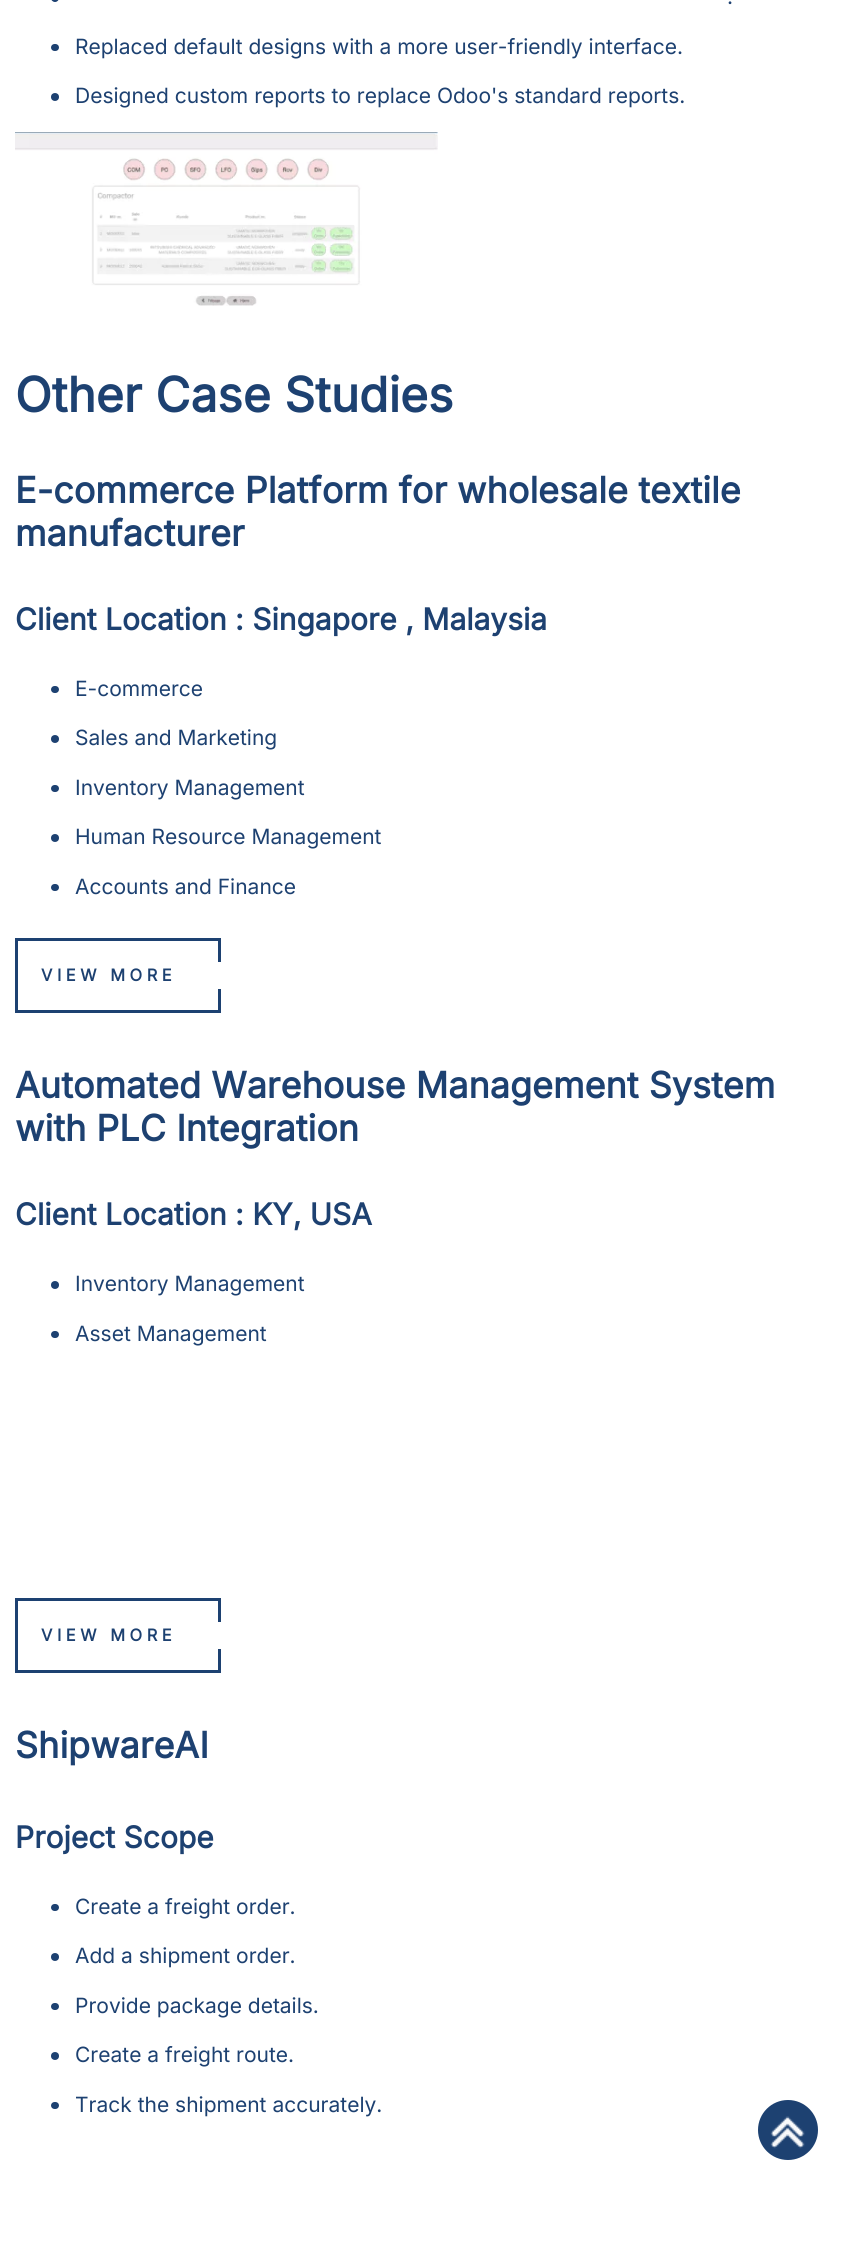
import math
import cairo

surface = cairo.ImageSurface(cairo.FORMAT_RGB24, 862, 2252)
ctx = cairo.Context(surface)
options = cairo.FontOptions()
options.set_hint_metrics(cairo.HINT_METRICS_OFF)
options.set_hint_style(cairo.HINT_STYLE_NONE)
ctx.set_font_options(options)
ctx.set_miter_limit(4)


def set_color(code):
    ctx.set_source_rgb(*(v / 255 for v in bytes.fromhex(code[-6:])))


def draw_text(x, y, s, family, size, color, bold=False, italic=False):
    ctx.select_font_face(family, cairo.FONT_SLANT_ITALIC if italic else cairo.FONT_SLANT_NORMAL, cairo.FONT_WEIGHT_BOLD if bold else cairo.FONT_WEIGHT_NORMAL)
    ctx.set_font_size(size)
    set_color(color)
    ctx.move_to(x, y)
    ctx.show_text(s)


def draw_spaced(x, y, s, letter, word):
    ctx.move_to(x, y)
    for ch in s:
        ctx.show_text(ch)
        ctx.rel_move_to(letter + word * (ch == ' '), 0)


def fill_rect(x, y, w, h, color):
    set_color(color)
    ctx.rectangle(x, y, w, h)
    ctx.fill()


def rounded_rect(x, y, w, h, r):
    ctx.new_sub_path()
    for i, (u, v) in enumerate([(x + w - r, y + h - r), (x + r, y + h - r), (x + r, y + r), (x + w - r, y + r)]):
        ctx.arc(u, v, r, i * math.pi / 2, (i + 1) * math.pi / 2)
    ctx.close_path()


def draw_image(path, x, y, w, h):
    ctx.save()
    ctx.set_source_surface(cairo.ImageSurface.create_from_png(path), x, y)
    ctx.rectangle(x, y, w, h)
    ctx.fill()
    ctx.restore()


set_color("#ffffff")
ctx.paint()
set_color("#1d4171")
rounded_rect(51, -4, 8, 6, 4)
ctx.fill()
draw_text(727, 4, ".", "Inter", 21, "#1d4171")
rounded_rect(51, 44, 8, 7, 3.5)
ctx.fill()
draw_text(75, 54, "Replaced default designs with a more user-friendly interface.", "Inter", 21, "#1d4171")
ctx.new_path()
ctx.arc(55, 97, 4, 0, 2 * math.pi)
ctx.fill()
draw_text(75, 103, "Designed custom reports to replace Odoo's standard reports.", "Inter", 21, "#1d4171")
draw_image("assets/img1.png", 15, 132, 423, 174)
draw_text(15, 412, "Other Case Studies", "Inter", 48, "#1d4171", bold=True)
draw_text(15, 503, "E-commerce Platform for wholesale textile", "Inter", 36, "#1d4171", bold=True)
draw_text(15, 546, "manufacturer", "Inter", 36, "#1d4171", bold=True)
draw_text(15, 630, "Client Location : Singapore , Malaysia", "Inter", 30, "#1d4171", bold=True)
rounded_rect(51, 686, 8, 7, 3.5)
ctx.fill()
draw_text(75, 696, "E-commerce", "Inter", 21, "#1d4171")
ctx.new_path()
ctx.arc(55, 739, 4, 0, 2 * math.pi)
ctx.fill()
draw_text(75, 745, "Sales and Marketing", "Inter", 21, "#1d4171")
rounded_rect(51, 785, 8, 7, 3.5)
ctx.fill()
draw_text(75, 795, "Inventory Management", "Inter", 21, "#1d4171")
ctx.new_path()
ctx.arc(55, 838, 4, 0, 2 * math.pi)
ctx.fill()
draw_text(75, 844, "Human Resource Management", "Inter", 21, "#1d4171")
rounded_rect(51, 884, 8, 7, 3.5)
ctx.fill()
draw_text(75, 894, "Accounts and Finance", "Inter", 21, "#1d4171")
fill_rect(15, 938, 206, 3, "#1d4171")
fill_rect(15, 1010, 206, 3, "#1d4171")
fill_rect(15, 938, 3, 75, "#1d4171")
fill_rect(218, 941, 3, 21, "#1d4171")
ctx.select_font_face("Inter", cairo.FONT_SLANT_NORMAL, cairo.FONT_WEIGHT_BOLD)
ctx.set_font_size(16.5)
draw_spaced(41, 981, "VIEW MORE", 4.5, 0)
fill_rect(218, 989, 3, 21, "#1d4171")
draw_text(15, 1098, "Automated Warehouse Management System", "Inter", 36, "#1d4171", bold=True)
draw_text(15, 1141, "with PLC Integration", "Inter", 36, "#1d4171", bold=True)
draw_text(15, 1225, "Client Location : KY, USA", "Inter", 30, "#1d4171", bold=True)
ctx.new_path()
ctx.arc(55, 1285, 4, 0, 2 * math.pi)
ctx.fill()
draw_text(75, 1291, "Inventory Management", "Inter", 21, "#1d4171")
rounded_rect(51, 1331, 8, 7, 3.5)
ctx.fill()
draw_text(75, 1341, "Asset Management", "Inter", 21, "#1d4171")
fill_rect(15, 1598, 206, 3, "#1d4171")
fill_rect(15, 1670, 206, 3, "#1d4171")
fill_rect(15, 1598, 3, 75, "#1d4171")
fill_rect(218, 1601, 3, 21, "#1d4171")
ctx.select_font_face("Inter", cairo.FONT_SLANT_NORMAL, cairo.FONT_WEIGHT_BOLD)
ctx.set_font_size(16.5)
draw_spaced(41, 1641, "VIEW MORE", 4.5, 0)
fill_rect(218, 1649, 3, 21, "#1d4171")
draw_text(15, 1758, "ShipwareAI", "Inter", 36, "#1d4171", bold=True)
draw_text(15, 1848, "Project Scope", "Inter", 30, "#1d4171", bold=True)
rounded_rect(51, 1904, 8, 7, 3.5)
ctx.fill()
draw_text(75, 1914, "Create a freight order.", "Inter", 21, "#1d4171")
ctx.new_path()
ctx.arc(55, 1957, 4, 0, 2 * math.pi)
ctx.fill()
draw_text(75, 1963, "Add a shipment order.", "Inter", 21, "#1d4171")
rounded_rect(51, 2003, 8, 7, 3.5)
ctx.fill()
draw_text(75, 2013, "Provide package details.", "Inter", 21, "#1d4171")
ctx.new_path()
ctx.arc(55, 2056, 4, 0, 2 * math.pi)
ctx.fill()
draw_text(75, 2062, "Create a freight route.", "Inter", 21, "#1d4171")
rounded_rect(51, 2102, 8, 7, 3.5)
ctx.fill()
draw_text(75, 2112, "Track the shipment accurately.", "Inter", 21, "#1d4171")
ctx.new_path()
ctx.arc(788, 2130, 30, 0, 2 * math.pi)
ctx.fill()
draw_image("assets/img2.png", 770, 2116, 35, 33)
surface.write_to_png("output.png")
